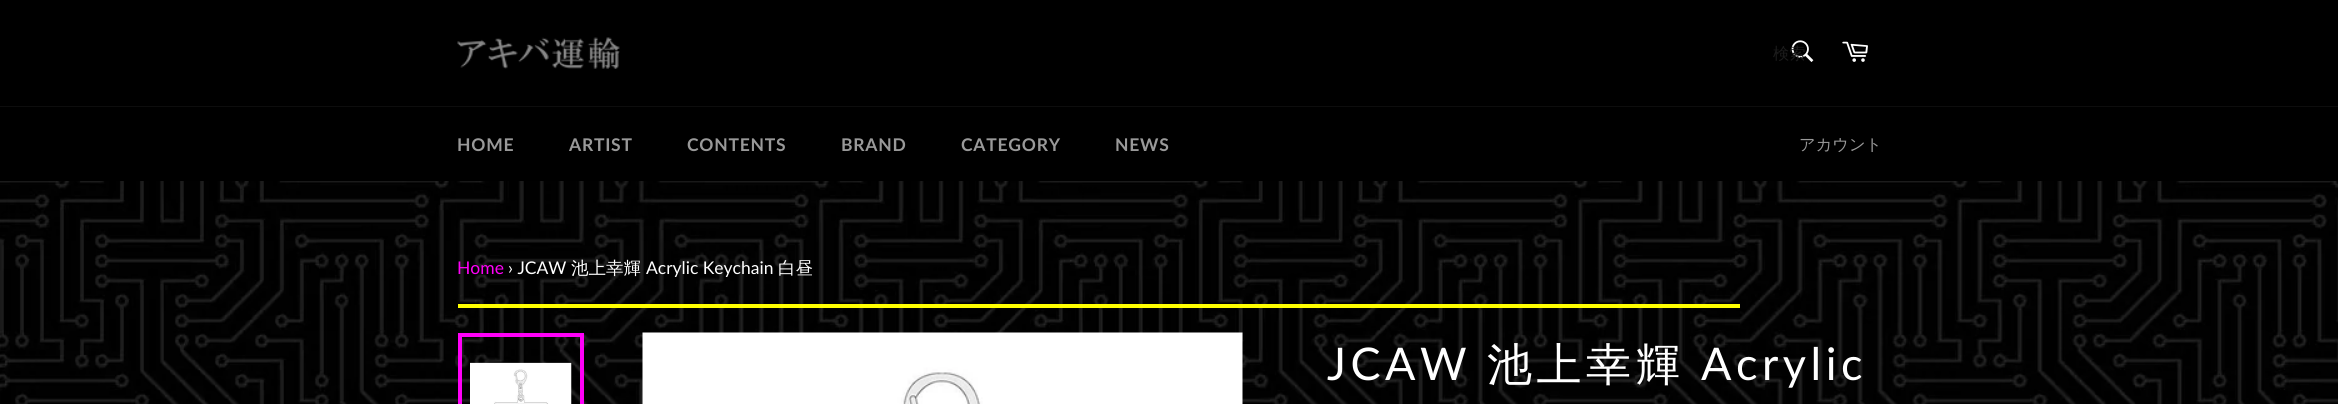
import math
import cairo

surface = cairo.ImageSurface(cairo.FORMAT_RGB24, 2338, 404)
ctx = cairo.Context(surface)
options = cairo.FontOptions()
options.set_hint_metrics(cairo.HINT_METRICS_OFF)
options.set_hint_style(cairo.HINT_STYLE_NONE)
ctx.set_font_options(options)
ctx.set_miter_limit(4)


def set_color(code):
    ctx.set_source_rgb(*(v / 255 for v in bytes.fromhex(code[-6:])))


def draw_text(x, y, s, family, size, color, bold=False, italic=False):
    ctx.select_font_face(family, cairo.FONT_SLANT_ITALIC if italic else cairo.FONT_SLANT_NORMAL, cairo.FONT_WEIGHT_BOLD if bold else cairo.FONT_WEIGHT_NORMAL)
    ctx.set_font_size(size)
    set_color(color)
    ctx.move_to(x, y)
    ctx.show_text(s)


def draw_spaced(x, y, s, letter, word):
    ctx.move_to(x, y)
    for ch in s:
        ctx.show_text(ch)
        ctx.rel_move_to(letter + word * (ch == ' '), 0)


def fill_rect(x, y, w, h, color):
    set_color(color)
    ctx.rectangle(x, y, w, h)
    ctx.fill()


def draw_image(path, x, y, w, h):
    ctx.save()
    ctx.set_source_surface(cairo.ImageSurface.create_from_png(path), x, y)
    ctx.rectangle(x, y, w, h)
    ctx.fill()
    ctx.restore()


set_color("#ffffff")
ctx.paint()
draw_image("assets/img1.png", 0, 181, 2338, 223)
fill_rect(0, 0, 2338, 106, "#000000")
draw_image("assets/img2.png", 457, 37, 163, 32)
draw_image("assets/img3.png", 1791, 40, 23, 22)
draw_text(1773, 59, "検索", "WenQuanYi Zen Hei Medium", 16.25, "#1b1b1b")
draw_image("assets/img4.png", 1842, 41, 26, 21)
fill_rect(0, 107, 2338, 74, "#000000")
fill_rect(0, 106, 2338, 1, "#0d0d0d")
ctx.select_font_face("Lato", cairo.FONT_SLANT_NORMAL, cairo.FONT_WEIGHT_BOLD)
ctx.set_font_size(17.5)
set_color("#999999")
draw_spaced(457, 151, "HOME", 0.75, 0)
draw_spaced(569, 151, "ARTIST", 0.75, 0)
draw_spaced(687, 151, "CONTENTS", 0.75, 0)
draw_spaced(841, 151, "BRAND", 0.75, 0)
draw_spaced(961, 151, "CATEGORY", 0.75, 0)
draw_spaced(1115, 151, "NEWS", 0.75, 0)
draw_text(1799, 150, "アカウント", "WenQuanYi Zen Hei Medium", 16.25, "#999999")
draw_text(457, 274, "Home", "Lato", 17.5, "#ff00f8")
draw_text(508, 274, "› JCAW", "Lato", 17.5, "#ffffff")
draw_text(571, 274, "池上幸輝", "WenQuanYi Zen Hei Medium", 17.5, "#ffffff")
draw_text(646, 274, "Acrylic Keychain", "Lato", 17.5, "#ffffff")
draw_text(778, 274, "白昼", "WenQuanYi Zen Hei Medium", 17.5, "#ffffff")
fill_rect(458, 304, 1282, 4, "#ffff00")
draw_image("assets/img5.png", 470, 362, 102, 42)
ctx.rectangle(460, 335, 122, 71)
set_color("#ff00f8")
ctx.set_line_width(4)
ctx.stroke()
draw_image("assets/img6.png", 642, 332, 601, 72)
ctx.select_font_face("Lato")
ctx.set_font_size(45)
set_color("#ffffff")
draw_spaced(1327, 380, "JCAW", 4.5, 0)
ctx.select_font_face("WenQuanYi Zen Hei Medium")
draw_spaced(1487, 380, "池上幸輝", 4.5, 0)
ctx.select_font_face("Lato")
draw_spaced(1701, 380, "Acrylic", 4.5, 0)
surface.write_to_png("output.png")
